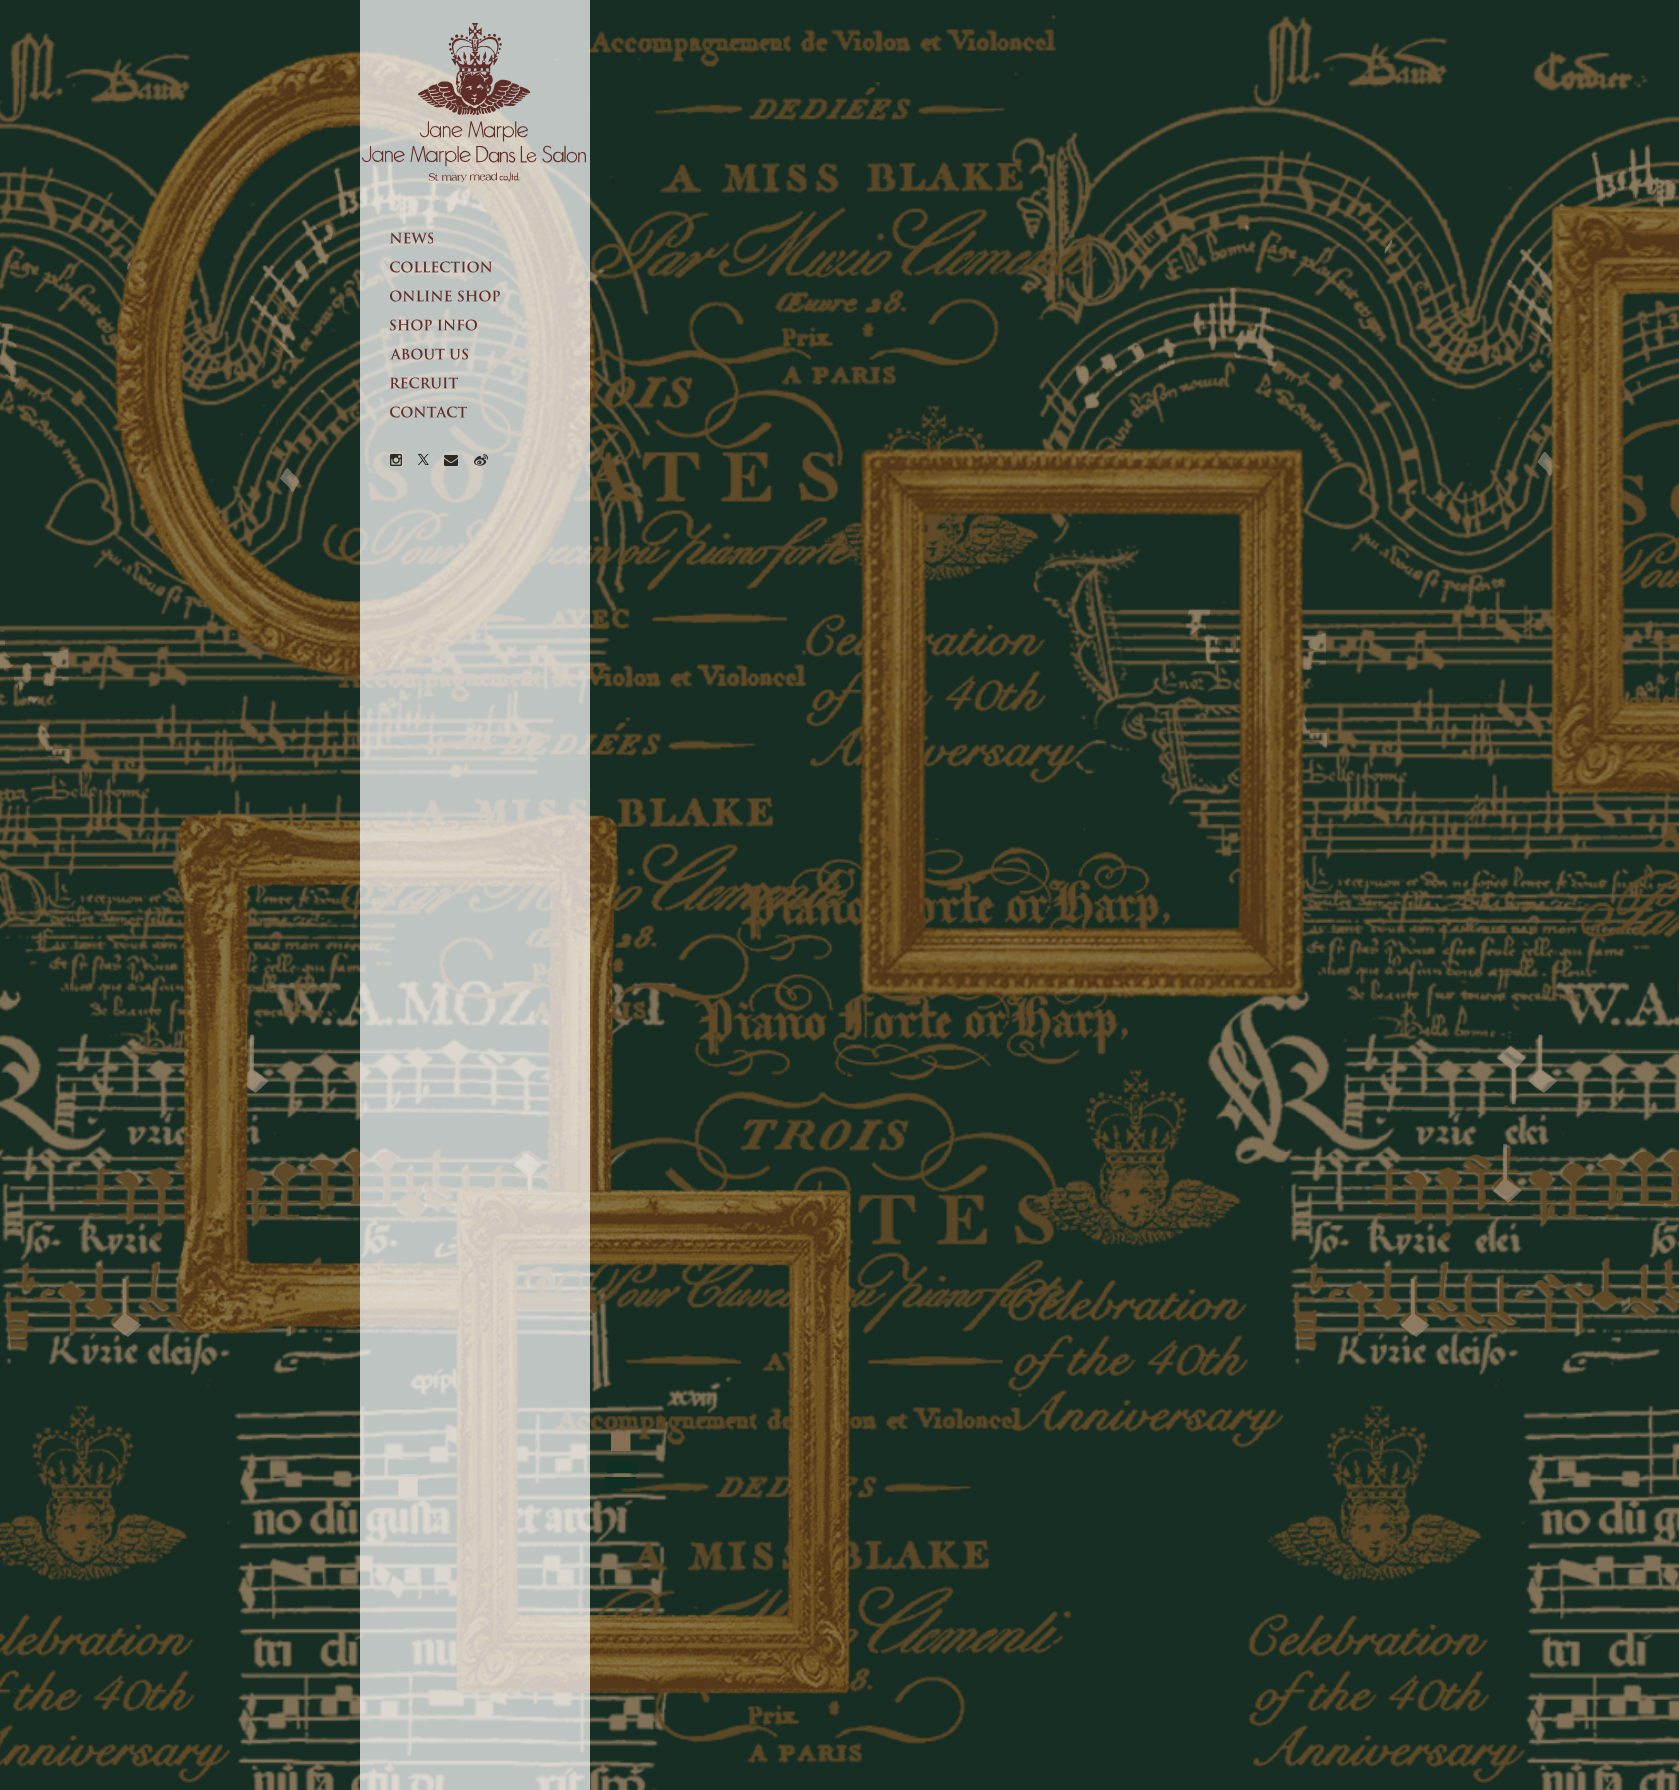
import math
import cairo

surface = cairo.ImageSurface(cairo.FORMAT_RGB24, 1679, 1790)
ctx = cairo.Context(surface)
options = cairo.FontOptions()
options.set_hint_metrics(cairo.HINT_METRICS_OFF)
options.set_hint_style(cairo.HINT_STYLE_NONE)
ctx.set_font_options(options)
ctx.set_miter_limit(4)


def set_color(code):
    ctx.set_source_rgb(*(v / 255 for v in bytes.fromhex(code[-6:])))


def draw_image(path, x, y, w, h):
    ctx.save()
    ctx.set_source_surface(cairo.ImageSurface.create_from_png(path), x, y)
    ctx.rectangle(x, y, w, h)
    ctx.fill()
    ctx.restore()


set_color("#162e24")
ctx.paint()
draw_image("assets/img13.png", 0, 15, 1679, 1775)
ctx.set_source_rgba(1, 1, 1, 0.6)
ctx.rectangle(360, 0, 230, 1790)
ctx.fill()
ctx.set_source_rgba(1, 1, 1, 0.3)
ctx.rectangle(360, 0, 230, 1790)
ctx.fill()
draw_image("assets/img1.png", 362, 23, 224, 159)
draw_image("assets/img2.png", 390, 232, 43, 12)
draw_image("assets/img3.png", 390, 261, 102, 12)
draw_image("assets/img4.png", 390, 290, 110, 12)
draw_image("assets/img5.png", 390, 319, 87, 12)
draw_image("assets/img6.png", 390, 348, 78, 12)
draw_image("assets/img7.png", 390, 377, 68, 12)
draw_image("assets/img8.png", 390, 406, 77, 12)
draw_image("assets/img9.png", 390, 454, 12, 12)
draw_image("assets/img10.png", 418, 454, 11, 11)
draw_image("assets/img11.png", 444, 455, 14, 11)
draw_image("assets/img12.png", 474, 454, 14, 12)
surface.write_to_png("output.png")
